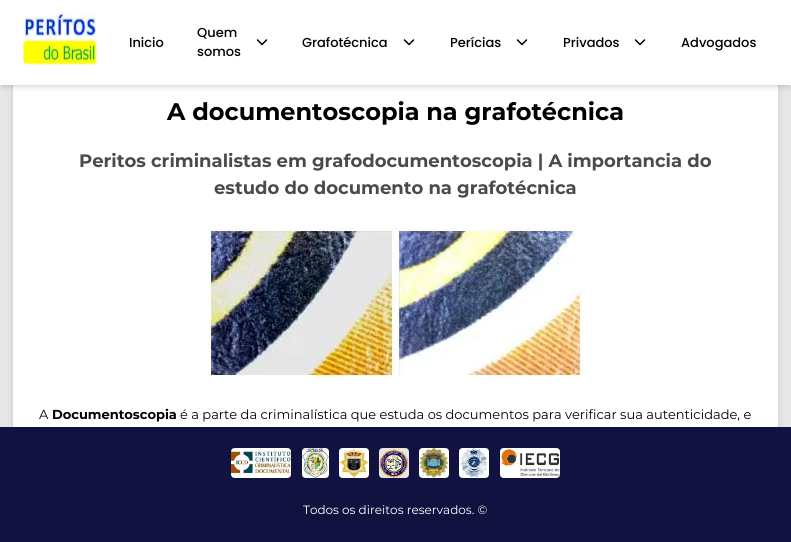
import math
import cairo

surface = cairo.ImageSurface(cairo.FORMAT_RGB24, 791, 542)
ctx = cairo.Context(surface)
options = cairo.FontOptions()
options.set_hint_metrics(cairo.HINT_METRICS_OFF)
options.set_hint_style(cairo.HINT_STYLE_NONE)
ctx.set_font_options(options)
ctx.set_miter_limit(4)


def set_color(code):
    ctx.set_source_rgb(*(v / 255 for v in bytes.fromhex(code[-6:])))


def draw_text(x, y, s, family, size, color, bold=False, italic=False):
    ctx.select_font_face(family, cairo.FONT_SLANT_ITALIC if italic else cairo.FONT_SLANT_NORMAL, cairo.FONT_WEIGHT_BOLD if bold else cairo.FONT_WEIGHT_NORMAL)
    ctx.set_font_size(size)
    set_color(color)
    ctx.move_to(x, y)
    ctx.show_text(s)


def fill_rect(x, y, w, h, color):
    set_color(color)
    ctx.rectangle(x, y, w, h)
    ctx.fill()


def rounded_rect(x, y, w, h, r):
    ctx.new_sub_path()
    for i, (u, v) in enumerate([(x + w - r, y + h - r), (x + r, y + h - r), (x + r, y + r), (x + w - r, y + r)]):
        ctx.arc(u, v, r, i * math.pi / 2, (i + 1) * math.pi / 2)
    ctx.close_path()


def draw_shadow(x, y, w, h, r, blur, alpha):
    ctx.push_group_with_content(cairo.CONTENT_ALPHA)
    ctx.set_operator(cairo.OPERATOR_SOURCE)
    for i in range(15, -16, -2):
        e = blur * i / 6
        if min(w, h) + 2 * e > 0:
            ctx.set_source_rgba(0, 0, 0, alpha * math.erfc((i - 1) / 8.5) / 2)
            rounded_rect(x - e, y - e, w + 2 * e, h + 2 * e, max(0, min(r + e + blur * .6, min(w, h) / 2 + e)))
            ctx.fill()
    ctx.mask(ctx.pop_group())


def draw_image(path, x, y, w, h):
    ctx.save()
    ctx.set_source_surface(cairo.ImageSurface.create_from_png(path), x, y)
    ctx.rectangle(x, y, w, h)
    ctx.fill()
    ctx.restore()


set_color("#e7e7e7")
ctx.paint()
set_color("#636363")
draw_shadow(13, 70, 765, 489, 5, 4, 0.2)
fill_rect(0, 0, 791, 85, "#ffffff")
fill_rect(13, 85, 765, 342, "#ffffff")
ctx.save()
ctx.rectangle(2, 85, 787, 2)
ctx.clip()
set_color("#000000")
draw_shadow(2, 4, 787, 81, 0, 2, 0.1)
ctx.restore()
ctx.save()
ctx.rectangle(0, 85, 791, 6)
ctx.clip()
set_color("#000000")
draw_shadow(1, 5, 789, 83, 0, 3, 0.1)
ctx.restore()
draw_image("assets/img1.png", 23, 13, 74, 52)
draw_text(129, 47, "Inicio", "Poppins Medium", 13, "#000000")
draw_text(197, 37, "Quem", "Poppins Medium", 13, "#000000")
draw_text(197, 56, "somos", "Poppins Medium", 13, "#000000")
ctx.new_path()
ctx.move_to(257.5, 40)
ctx.line_to(262, 44.5)
ctx.line_to(266.5, 40)
ctx.set_line_width(1.5)
ctx.set_line_cap(cairo.LINE_CAP_ROUND)
ctx.set_line_join(cairo.LINE_JOIN_ROUND)
ctx.stroke()
draw_text(302, 47, "Grafotécnica", "Poppins Medium", 13, "#000000")
ctx.new_path()
ctx.move_to(404.5, 40)
ctx.line_to(409, 44.5)
ctx.line_to(413.5, 40)
ctx.stroke()
draw_text(450, 47, "Perícias", "Poppins Medium", 13, "#000000")
ctx.new_path()
ctx.move_to(517.5, 40)
ctx.line_to(522, 44.5)
ctx.line_to(526.5, 40)
ctx.stroke()
draw_text(563, 47, "Privados", "Poppins Medium", 13, "#000000")
ctx.new_path()
ctx.move_to(635.5, 40)
ctx.line_to(640, 44.5)
ctx.line_to(644.5, 40)
ctx.stroke()
draw_text(681, 47, "Advogados", "Poppins Medium", 13, "#000000")
draw_text(167, 120, "A documentoscopia na grafotécnica", "Montserrat", 24, "#000000", bold=True)
draw_text(79, 167, "Peritos criminalistas em grafodocumentoscopia | A importancia do", "Montserrat", 18, "#4a4a4a", bold=True)
draw_text(214, 194, "estudo do documento na grafotécnica", "Montserrat", 18, "#4a4a4a", bold=True)
draw_image("assets/img2.png", 207, 228, 377, 150)
draw_text(39, 419, "A", "Montserrat", 13, "#000000")
draw_text(52, 419, "Documentoscopia", "Montserrat", 13, "#000000", bold=True)
draw_text(180, 419, "é a parte da criminalística que estuda os documentos para verificar sua autenticidade, e", "Montserrat", 13, "#000000")
fill_rect(0, 427, 791, 115, "#121241")
draw_image("assets/img3.png", 231, 448, 60, 30)
draw_image("assets/img4.png", 302, 448, 27, 30)
draw_image("assets/img5.png", 339, 448, 30, 30)
draw_image("assets/img6.png", 379, 448, 30, 30)
draw_image("assets/img7.png", 419, 448, 30, 30)
draw_image("assets/img8.png", 459, 448, 30, 30)
draw_image("assets/img9.png", 500, 448, 60, 30)
draw_text(303, 514, "Todos os direitos reservados. ©", "Montserrat", 12, "#ffffff")
surface.write_to_png("output.png")
